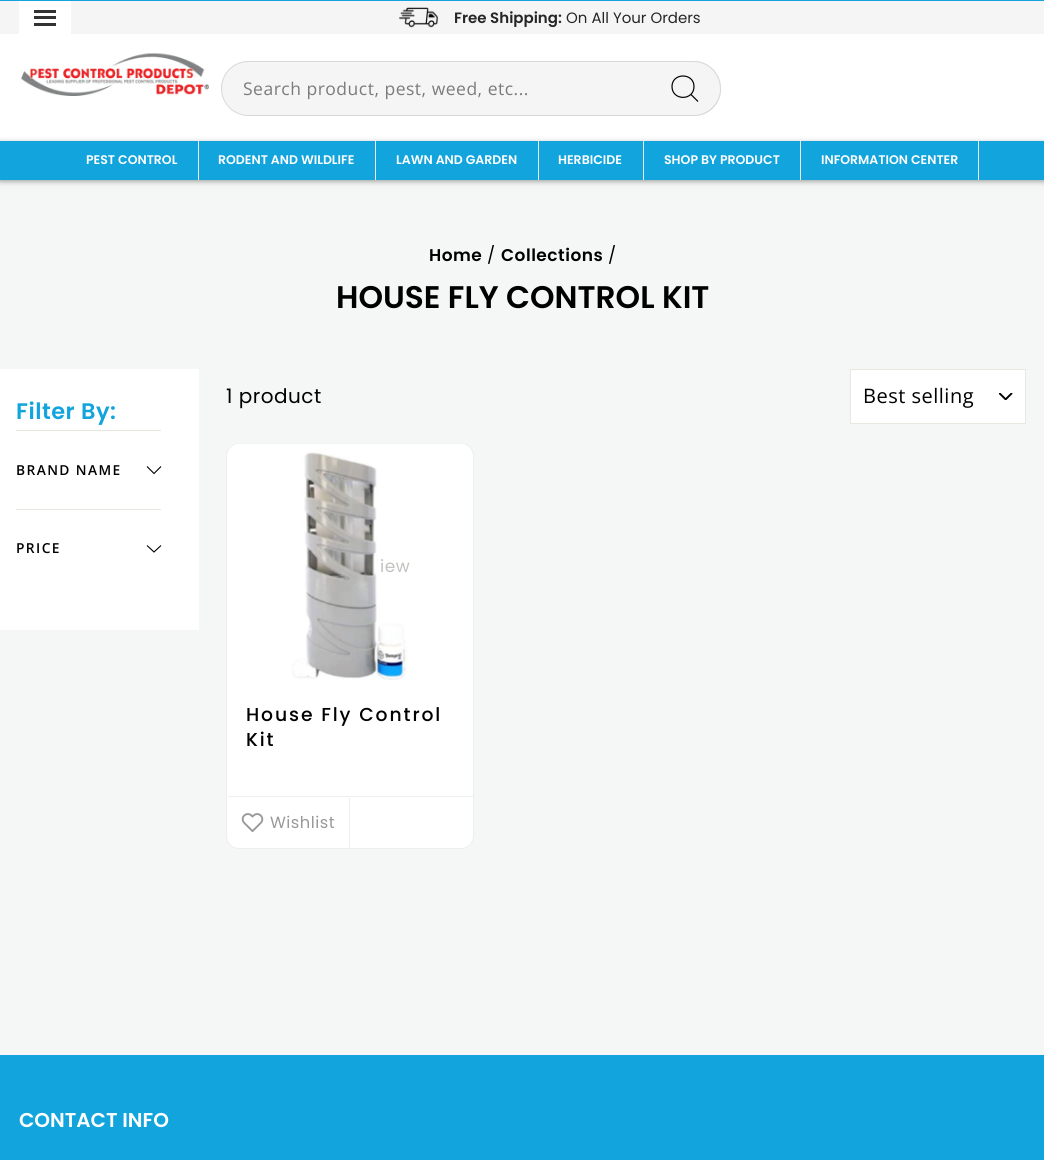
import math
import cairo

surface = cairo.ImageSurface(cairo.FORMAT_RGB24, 1044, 1160)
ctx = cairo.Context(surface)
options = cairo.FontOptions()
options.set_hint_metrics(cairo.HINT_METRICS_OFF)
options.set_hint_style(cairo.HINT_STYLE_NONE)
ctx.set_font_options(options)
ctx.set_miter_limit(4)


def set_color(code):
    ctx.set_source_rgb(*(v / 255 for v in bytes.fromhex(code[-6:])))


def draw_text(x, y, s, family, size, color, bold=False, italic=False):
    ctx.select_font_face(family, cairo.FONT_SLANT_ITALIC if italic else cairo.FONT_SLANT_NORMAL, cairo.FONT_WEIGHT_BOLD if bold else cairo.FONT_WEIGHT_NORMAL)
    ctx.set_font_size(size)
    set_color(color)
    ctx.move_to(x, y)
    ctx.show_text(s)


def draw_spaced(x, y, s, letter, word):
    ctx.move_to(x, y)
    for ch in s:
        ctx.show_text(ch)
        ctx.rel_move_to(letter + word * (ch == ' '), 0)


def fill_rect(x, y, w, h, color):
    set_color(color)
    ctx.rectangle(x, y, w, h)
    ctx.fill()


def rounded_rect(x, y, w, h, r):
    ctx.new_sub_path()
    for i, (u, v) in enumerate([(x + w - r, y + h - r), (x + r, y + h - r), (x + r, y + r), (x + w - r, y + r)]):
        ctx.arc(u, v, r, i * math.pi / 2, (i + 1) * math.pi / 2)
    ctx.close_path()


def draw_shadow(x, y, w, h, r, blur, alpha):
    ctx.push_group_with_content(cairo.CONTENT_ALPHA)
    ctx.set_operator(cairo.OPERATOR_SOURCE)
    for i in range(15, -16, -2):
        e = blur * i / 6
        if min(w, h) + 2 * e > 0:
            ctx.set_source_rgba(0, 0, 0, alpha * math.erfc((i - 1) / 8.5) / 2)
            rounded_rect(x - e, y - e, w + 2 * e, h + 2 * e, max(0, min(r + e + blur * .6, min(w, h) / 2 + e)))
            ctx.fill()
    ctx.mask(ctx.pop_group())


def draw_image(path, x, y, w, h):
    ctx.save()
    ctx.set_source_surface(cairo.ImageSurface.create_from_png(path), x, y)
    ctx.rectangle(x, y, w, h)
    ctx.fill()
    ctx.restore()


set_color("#ffffff")
ctx.paint()
fill_rect(0, 0, 1044, 1, "#12a4dd")
fill_rect(0, 1, 1044, 33, "#f5f5f5")
fill_rect(19, 1, 52, 33, "#ffffff")
fill_rect(34, 16, 22, 3, "#333333")
fill_rect(34, 10, 22, 3, "#333333")
fill_rect(34, 23, 22, 3, "#333333")
draw_image("assets/img1.png", 399, 7, 40, 21)
draw_text(454, 23, "Free Shipping:", "Poppins SemiBold", 15, "#262626")
draw_text(566, 23, "On All Your Orders", "Poppins", 15, "#262626")
draw_image("assets/img2.png", 21, 53, 188, 43)
set_color("#f5f5f5")
rounded_rect(221.5, 61.5, 499, 54, 27)
ctx.fill_preserve()
set_color("#d8d8d8")
ctx.set_line_width(1)
ctx.stroke()
ctx.select_font_face("Open Sans")
ctx.set_font_size(17.5)
set_color("#7b7b7b")
draw_spaced(243, 95, "Search product, pest, weed, etc...", 0.5, 0)
set_color("#f5f5f5")
ctx.new_path()
ctx.move_to(659, 61)
ctx.line_to(693.5, 61)
ctx.curve_to(708.5, 61, 721, 73.5, 721, 88.5)
ctx.curve_to(721, 103.5, 708.5, 116, 693.5, 116)
ctx.line_to(659, 116)
ctx.close_path()
ctx.fill()
set_color("#d8d8d8")
ctx.set_fill_rule(cairo.FILL_RULE_EVEN_ODD)
ctx.new_path()
ctx.move_to(659, 61)
ctx.line_to(694, 61)
ctx.curve_to(709, 61, 721, 74, 721, 89)
ctx.curve_to(721, 104, 709, 116, 694, 116)
ctx.line_to(659, 116)
ctx.close_path()
ctx.move_to(659, 62)
ctx.line_to(694, 62)
ctx.curve_to(708, 62, 720, 74, 720, 89)
ctx.curve_to(720, 103, 708, 115, 694, 115)
ctx.line_to(659, 115)
ctx.close_path()
ctx.fill()
ctx.new_path()
ctx.move_to(694, 86.5)
ctx.curve_to(694, 101, 672, 101, 672, 86.5)
ctx.curve_to(672, 72.5, 694, 72.5, 694, 86.5)
ctx.close_path()
ctx.move_to(698, 101.5)
ctx.line_to(691, 94.5)
set_color("#000000")
ctx.set_line_width(1.2)
ctx.stroke()
fill_rect(0, 180, 1044, 875, "#f5f7f7")
set_color("#000000")
draw_shadow(0, 143, 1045, 38, 0, 3, 0.4)
fill_rect(0, 141, 1044, 39, "#12a4dd")
fill_rect(198, 141, 1, 39, "#ebebeb")
draw_text(86, 164, "PEST CONTROL", "Poppins SemiBold", 12.5, "#ffffff")
fill_rect(375, 141, 1, 39, "#ebebeb")
draw_text(218, 164, "RODENT AND WILDLIFE", "Poppins SemiBold", 12.5, "#ffffff")
fill_rect(538, 141, 1, 39, "#ebebeb")
draw_text(396, 164, "LAWN AND GARDEN", "Poppins SemiBold", 12.5, "#ffffff")
fill_rect(643, 141, 1, 39, "#ebebeb")
draw_text(558, 164, "HERBICIDE", "Poppins SemiBold", 12.5, "#ffffff")
fill_rect(800, 141, 1, 39, "#ebebeb")
draw_text(664, 164, "SHOP BY PRODUCT", "Poppins SemiBold", 12.5, "#ffffff")
fill_rect(978, 141, 1, 39, "#ebebeb")
draw_text(821, 164, "INFORMATION CENTER", "Poppins SemiBold", 12.5, "#ffffff")
ctx.set_font_size(17)
set_color("#000000")
draw_spaced(429, 261, "Home", 0.5, 0)
ctx.select_font_face("Poppins")
draw_spaced(487, 261, "/", 0.5, 0)
ctx.select_font_face("Poppins SemiBold")
draw_spaced(501, 261, "Collections", 0.5, 0)
ctx.select_font_face("Poppins")
draw_spaced(608, 261, "/", 0.5, 0)
draw_text(336, 308, "HOUSE FLY CONTROL KIT", "Poppins SemiBold", 31.25, "#000000")
fill_rect(0, 369, 199, 261, "#ffffff")
ctx.set_font_size(22.5)
set_color("#12a4dd")
draw_spaced(16, 419, "Filter By:", 0.5, 0)
fill_rect(16, 430, 145, 1, "#e8e8e1")
ctx.select_font_face("Open Sans SemiBold")
ctx.set_font_size(13.75)
set_color("#000000")
draw_spaced(16, 475, "BRAND NAME", 1.4, 0)
ctx.new_path()
ctx.move_to(147, 466.5)
ctx.line_to(154, 473.5)
ctx.line_to(161, 466.5)
ctx.set_line_width(1.1)
ctx.stroke()
fill_rect(16, 509, 145, 1, "#e8e8e1")
set_color("#000000")
draw_spaced(16, 553, "PRICE", 1.4, 0)
ctx.new_path()
ctx.move_to(147, 545.5)
ctx.line_to(154, 552)
ctx.line_to(161, 545.5)
ctx.stroke()
ctx.select_font_face("Poppins")
ctx.set_font_size(20)
draw_spaced(226, 403, "1 product", 0.5, 0)
fill_rect(851, 370, 174, 53, "#ffffff")
draw_image("assets/img3.png", 999, 393, 14, 7)
ctx.rectangle(850.5, 369.5, 175, 54)
set_color("#e8e8e1")
ctx.set_line_width(1)
ctx.stroke()
ctx.select_font_face("Open Sans")
set_color("#000000")
draw_spaced(863, 403, "Best selling", 0.5, 0)
set_color("#ffffff")
rounded_rect(226.5, 443.5, 247, 405, 12.5)
ctx.fill_preserve()
set_color("#eeeeee")
ctx.stroke()
draw_image("assets/img4.png", 235, 443, 230, 237)
ctx.select_font_face("Poppins")
ctx.set_font_size(17)
set_color("#c3c2bf")
draw_spaced(380, 572, "iew", 0.5, 0)
ctx.select_font_face("Poppins Medium")
ctx.set_font_size(18.75)
set_color("#000000")
draw_spaced(246, 721, "House Fly Control", 1.9, 0)
draw_spaced(246, 746, "Kit", 1.9, 0)
fill_rect(228, 796, 245, 1, "#eeeeee")
fill_rect(349, 798, 1, 50, "#eeeeee")
draw_image("assets/img5.png", 241, 813, 23, 19)
ctx.select_font_face("Poppins")
ctx.set_font_size(16.25)
set_color("#999999")
draw_spaced(270, 828, "Wishlist", 0.5, 0)
fill_rect(0, 1055, 1044, 105, "#12a4dd")
draw_text(19, 1127, "CONTACT INFO", "Poppins SemiBold", 20, "#ffffff")
surface.write_to_png("output.png")
